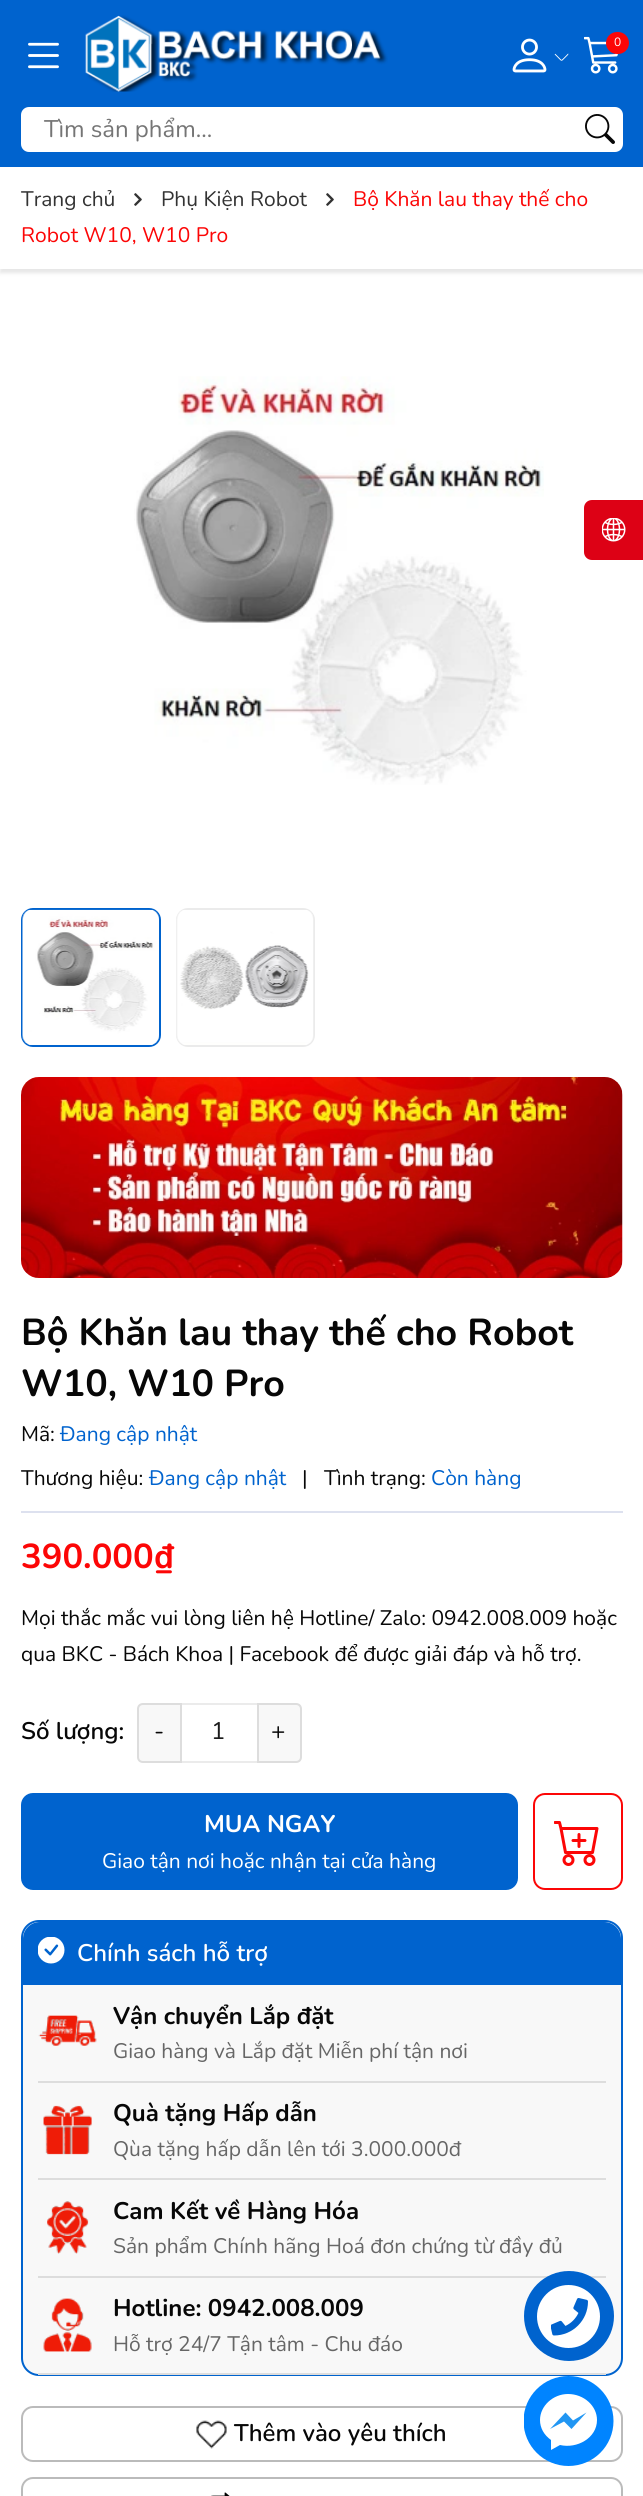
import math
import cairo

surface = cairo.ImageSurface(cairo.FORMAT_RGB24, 643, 2496)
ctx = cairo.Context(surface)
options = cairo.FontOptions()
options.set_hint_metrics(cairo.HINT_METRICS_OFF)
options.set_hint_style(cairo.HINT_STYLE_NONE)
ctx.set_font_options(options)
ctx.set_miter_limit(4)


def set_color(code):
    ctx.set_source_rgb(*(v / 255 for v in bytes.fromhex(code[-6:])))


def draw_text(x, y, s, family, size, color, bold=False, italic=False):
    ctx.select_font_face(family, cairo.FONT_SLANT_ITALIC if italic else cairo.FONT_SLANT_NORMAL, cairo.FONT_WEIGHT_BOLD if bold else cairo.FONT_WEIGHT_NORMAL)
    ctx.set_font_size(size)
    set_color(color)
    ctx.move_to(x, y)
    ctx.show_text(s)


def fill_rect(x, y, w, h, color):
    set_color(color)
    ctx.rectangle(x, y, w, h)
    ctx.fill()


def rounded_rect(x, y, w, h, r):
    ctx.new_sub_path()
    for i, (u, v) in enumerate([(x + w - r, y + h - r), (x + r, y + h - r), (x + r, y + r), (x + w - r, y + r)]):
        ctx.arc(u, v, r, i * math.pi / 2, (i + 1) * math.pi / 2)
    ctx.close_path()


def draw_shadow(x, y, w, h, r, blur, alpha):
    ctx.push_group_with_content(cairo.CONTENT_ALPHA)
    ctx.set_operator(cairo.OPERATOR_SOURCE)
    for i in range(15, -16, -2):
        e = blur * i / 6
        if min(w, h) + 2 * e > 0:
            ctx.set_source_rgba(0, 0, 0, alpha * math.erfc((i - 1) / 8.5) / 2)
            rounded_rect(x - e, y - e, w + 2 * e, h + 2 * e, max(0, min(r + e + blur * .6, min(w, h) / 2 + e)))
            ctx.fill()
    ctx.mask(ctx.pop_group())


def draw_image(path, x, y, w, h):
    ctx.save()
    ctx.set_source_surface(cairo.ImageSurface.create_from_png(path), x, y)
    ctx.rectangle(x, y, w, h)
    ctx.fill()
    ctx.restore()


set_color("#ffffff")
ctx.paint()
fill_rect(0, 0, 643, 167, "#0063ce")
draw_image("assets/img1.png", 28, 42, 31, 27)
draw_image("assets/img2.png", 85, 15, 303, 77)
draw_image("assets/img3.png", 512, 38, 35, 35)
draw_image("assets/img4.png", 554, 53, 15, 8)
draw_image("assets/img5.png", 584, 36, 34, 38)
set_color("#fc0606")
rounded_rect(606, 32, 23, 22, 11)
ctx.fill()
draw_text(614, 46, "0", "Nunito", 12, "#ffffff")
rounded_rect(21, 107, 602, 45, 8)
ctx.fill()
draw_text(44, 137, "Tìm sản phẩm...", "Nunito", 24, "#757575")
draw_image("assets/img6.png", 585, 114, 30, 30)
set_color("#000000")
draw_shadow(0, 171, 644, 102, 0, 2, 0.1)
fill_rect(0, 168, 643, 101, "#ffffff")
draw_text(21, 206, "Trang chủ", "Nunito", 21, "#333333")
draw_image("assets/img7.png", 134, 193, 8, 13)
draw_text(161, 206, "Phụ Kiện Robot", "Nunito", 21, "#333333")
draw_image("assets/img7.png", 326, 193, 8, 13)
draw_text(353, 206, "Bộ Khăn lau thay thế cho", "Nunito", 21, "#fc0606")
draw_text(21, 242, "Robot W10, W10 Pro", "Nunito", 21, "#fc0606")
draw_image("assets/img8.png", 134, 376, 410, 409)
rounded_rect(22, 909, 138, 137, 11)
set_color("#0063ce")
ctx.stroke()
draw_image("assets/img9.png", 22, 909, 137, 136)
rounded_rect(177, 909, 137, 137, 11)
set_color("#ebebeb")
ctx.stroke()
draw_image("assets/img10.png", 176, 910, 138, 135)
draw_image("assets/img11.png", 21, 1077, 602, 201)
draw_text(21, 1345, "Bộ Khăn lau thay thế cho Robot", "Nunito", 37.5, "#070707", bold=True)
draw_text(21, 1396, "W10, W10 Pro", "Nunito", 37.5, "#070707", bold=True)
draw_text(21, 1441, "Mã:", "Nunito", 21, "#070707")
draw_text(60, 1441, "Đang cập nhật", "Nunito", 21, "#0063ce")
fill_rect(21, 1511, 602, 2, "#dde1ef")
draw_text(21, 1485, "Thương hiệu:", "Nunito", 21, "#070707")
draw_text(149, 1485, "Đang cập nhật", "Nunito", 21, "#0063ce")
draw_text(302, 1485, "|", "Nunito", 21, "#070707")
draw_text(324, 1485, "Tình trạng:", "Nunito", 21, "#070707")
draw_text(431, 1485, "Còn hàng", "Nunito", 21, "#0063ce")
draw_text(21, 1568, "390.000₫", "Nunito", 34.5, "#fc0606", bold=True)
draw_text(21, 1625, "Mọi thắc mắc vui lòng liên hệ Hotline/ Zalo: 0942.008.009 hoặc", "Nunito", 21, "#070707")
draw_text(21, 1661, "qua BKC - Bách Khoa | Facebook để được giải đáp và hỗ trợ.", "Nunito", 21, "#070707")
draw_text(21, 1739, "Số lượng:", "Nunito SemiBold", 24, "#070707")
set_color("#f8f8f8")
ctx.new_path()
ctx.move_to(143, 1704)
ctx.line_to(181, 1704)
ctx.line_to(181, 1762)
ctx.line_to(143, 1762)
ctx.curve_to(140, 1762, 138, 1760, 138, 1757)
ctx.line_to(138, 1709)
ctx.curve_to(138, 1706, 140, 1704, 143, 1704)
ctx.close_path()
ctx.fill_preserve()
set_color("#dddddd")
ctx.stroke()
draw_text(154, 1739, "-", "Nunito", 24, "#070707")
fill_rect(182, 1703, 75, 2, "#ebebeb")
fill_rect(182, 1761, 75, 2, "#ebebeb")
draw_text(211, 1739, "1", "Nunito", 24, "#1c1c1c")
set_color("#f8f8f8")
ctx.new_path()
ctx.move_to(258, 1704)
ctx.line_to(296, 1704)
ctx.curve_to(299, 1704, 301, 1706, 301, 1709)
ctx.line_to(301, 1757)
ctx.curve_to(301, 1760, 299, 1762, 296, 1762)
ctx.line_to(258, 1762)
ctx.close_path()
ctx.fill_preserve()
set_color("#dddddd")
ctx.stroke()
draw_text(271, 1739, "+", "Nunito", 24, "#070707")
set_color("#0063ce")
rounded_rect(21, 1793, 497, 97, 12)
ctx.fill()
draw_text(204, 1832, "MUA NGAY", "Nunito", 24, "#ffffff", bold=True)
draw_text(102, 1868, "Giao tận nơi hoặc nhận tại cửa hàng", "Nunito", 21, "#ffffff")
rounded_rect(534, 1794, 88, 95, 11)
set_color("#fc0606")
ctx.stroke()
draw_image("assets/img12.png", 554, 1821, 45, 45)
set_color("#f8f8f8")
rounded_rect(22, 1921, 600, 454, 17)
ctx.fill_preserve()
set_color("#0063ce")
ctx.stroke()
ctx.new_path()
ctx.move_to(40, 1922)
ctx.line_to(604, 1922)
ctx.curve_to(613.5, 1922, 621, 1929.5, 621, 1939)
ctx.line_to(621, 1985)
ctx.line_to(23, 1985)
ctx.line_to(23, 1939)
ctx.curve_to(23, 1929.5, 30.5, 1922, 40, 1922)
ctx.close_path()
ctx.fill()
draw_image("assets/img13.png", 38, 1937, 27, 27)
draw_text(77, 1961, "Chính sách hỗ trợ", "Nunito SemiBold", 24, "#ffffff")
fill_rect(38, 2081, 568, 2, "#dddddd")
draw_image("assets/img14.png", 38, 2015, 59, 31)
draw_text(113, 2024, "Vận chuyển Lắp đặt", "Nunito", 24, "#070707", bold=True)
draw_text(113, 2058, "Giao hàng và Lắp đặt Miễn phí tận nơi", "Nunito", 21, "#666666")
fill_rect(38, 2178, 568, 2, "#dddddd")
draw_image("assets/img15.png", 43, 2105, 49, 50)
draw_text(113, 2121, "Quà tặng Hấp dẫn", "Nunito", 24, "#070707", bold=True)
draw_text(113, 2156, "Qùa tặng hấp dẫn lên tới 3.000.000đ", "Nunito", 21, "#666666")
fill_rect(38, 2276, 568, 2, "#dddddd")
draw_image("assets/img16.png", 47, 2201, 42, 53)
draw_text(113, 2219, "Cam Kết về Hàng Hóa", "Nunito", 24, "#070707", bold=True)
draw_text(113, 2253, "Sản phẩm Chính hãng Hoá đơn chứng từ đầy đủ", "Nunito", 21, "#666666")
fill_rect(38, 2373, 568, 2, "#dddddd")
draw_image("assets/img17.png", 43, 2298, 49, 54)
draw_text(113, 2316, "Hotline: 0942.008.009", "Nunito", 24, "#070707", bold=True)
draw_text(113, 2351, "Hỗ trợ 24/7 Tận tâm - Chu đáo", "Nunito", 21, "#666666")
rounded_rect(22, 2407, 600, 54, 11)
set_color("#bbbbbb")
ctx.stroke()
draw_image("assets/img18.png", 196, 2420, 31, 29)
draw_text(234, 2441, "Thêm vào yêu thích", "Nunito SemiBold", 24, "#070707")
rounded_rect(22, 2478, 600, 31, 11)
set_color("#bbbbbb")
ctx.stroke()
draw_image("assets/img19.png", 211, 2492, 19, 4)
set_color("#dd0115")
ctx.new_path()
ctx.move_to(592, 500)
ctx.line_to(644, 500)
ctx.line_to(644, 560)
ctx.line_to(592, 560)
ctx.curve_to(587.5, 560, 584, 556.5, 584, 552)
ctx.line_to(584, 508)
ctx.curve_to(584, 503.5, 587.5, 500, 592, 500)
ctx.close_path()
ctx.fill()
draw_image("assets/img20.png", 602, 518, 24, 24)
set_color("#0063ce")
ctx.arc(569, 2316, 45, 0, 2 * math.pi)
ctx.fill()
set_color("#ffffff")
ctx.arc(568.5, 2316.5, 31.5, 0, 2 * math.pi)
ctx.fill()
draw_image("assets/img21.png", 551, 2298, 37, 38)
ctx.save()
ctx.rectangle(524, 2376, 90, 90)
ctx.clip()
set_color("#0084ff")
ctx.arc(568.5, 2421, 45, 0, 2 * math.pi)
ctx.fill()
ctx.restore()
ctx.new_path()
ctx.move_to(597, 2420)
ctx.curve_to(597, 2438, 577, 2449, 560, 2445)
ctx.line_to(551, 2450)
ctx.line_to(551, 2440)
ctx.curve_to(544, 2435, 540, 2428, 540, 2420)
ctx.curve_to(540, 2406, 553, 2394, 568, 2394)
ctx.curve_to(584, 2394, 597, 2406, 597, 2420)
ctx.close_path()
ctx.fill()
set_color("#2196f3")
ctx.new_path()
ctx.move_to(586.5, 2412.5)
ctx.line_to(571.5, 2429)
ctx.line_to(564, 2421.5)
ctx.line_to(550, 2429)
ctx.line_to(565.5, 2412.5)
ctx.line_to(573, 2420.5)
ctx.close_path()
ctx.fill()
surface.write_to_png("output.png")
